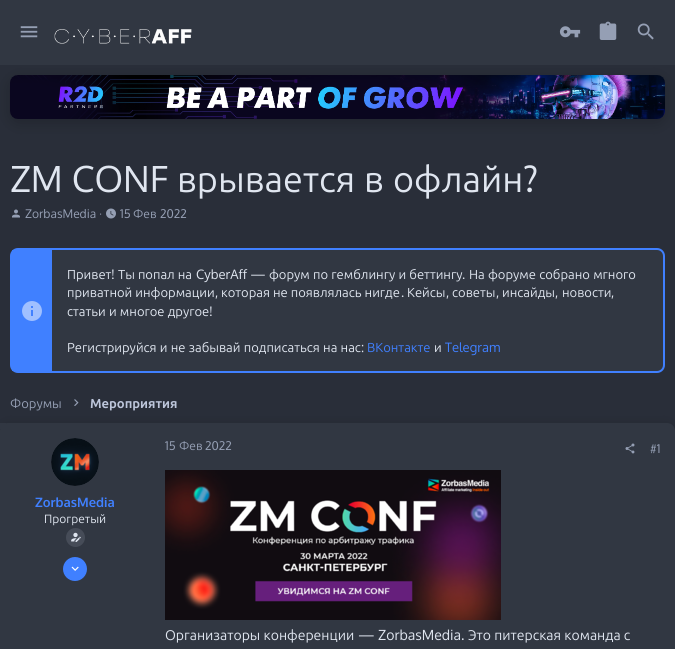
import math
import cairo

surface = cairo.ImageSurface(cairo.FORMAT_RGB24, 675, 649)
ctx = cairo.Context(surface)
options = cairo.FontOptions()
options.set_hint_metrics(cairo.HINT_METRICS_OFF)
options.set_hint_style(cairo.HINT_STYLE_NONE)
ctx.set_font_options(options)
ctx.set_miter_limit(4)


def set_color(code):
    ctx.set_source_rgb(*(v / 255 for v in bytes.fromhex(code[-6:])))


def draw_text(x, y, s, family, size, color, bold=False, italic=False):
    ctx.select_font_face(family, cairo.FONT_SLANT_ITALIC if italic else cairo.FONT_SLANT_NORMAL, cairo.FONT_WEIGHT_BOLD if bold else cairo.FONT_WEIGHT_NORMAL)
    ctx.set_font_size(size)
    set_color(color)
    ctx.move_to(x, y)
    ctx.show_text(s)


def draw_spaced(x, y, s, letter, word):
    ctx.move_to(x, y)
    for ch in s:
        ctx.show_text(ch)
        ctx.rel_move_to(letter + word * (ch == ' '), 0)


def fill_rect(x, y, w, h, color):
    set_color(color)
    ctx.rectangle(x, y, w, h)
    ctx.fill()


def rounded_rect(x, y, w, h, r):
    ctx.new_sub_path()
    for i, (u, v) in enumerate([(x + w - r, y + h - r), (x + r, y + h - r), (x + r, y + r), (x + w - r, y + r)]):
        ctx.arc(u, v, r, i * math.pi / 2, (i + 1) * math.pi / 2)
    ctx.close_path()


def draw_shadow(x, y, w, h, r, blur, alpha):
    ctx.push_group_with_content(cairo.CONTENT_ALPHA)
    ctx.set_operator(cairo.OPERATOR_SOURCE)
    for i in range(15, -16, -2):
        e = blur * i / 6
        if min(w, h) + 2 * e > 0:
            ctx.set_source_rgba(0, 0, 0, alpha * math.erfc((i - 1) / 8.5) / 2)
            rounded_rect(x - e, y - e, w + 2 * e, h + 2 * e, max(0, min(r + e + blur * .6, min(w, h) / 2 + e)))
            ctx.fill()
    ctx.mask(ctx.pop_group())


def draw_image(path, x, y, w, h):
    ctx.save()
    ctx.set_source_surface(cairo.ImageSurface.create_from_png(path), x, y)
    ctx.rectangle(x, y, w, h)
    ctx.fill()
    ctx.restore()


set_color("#292e39")
ctx.paint()
set_color("#000000")
draw_shadow(10, 79, 655, 44, 8, 7.5, 0.2)
fill_rect(0, 0, 675, 65, "#313742")
draw_image("assets/img1.png", 20, 26, 18, 12)
draw_image("assets/img2.png", 54, 29, 138, 15)
draw_image("assets/img3.png", 559, 26, 22, 12)
draw_image("assets/img4.png", 599, 21, 18, 19)
draw_image("assets/img5.png", 637, 23, 17, 17)
draw_image("assets/img6.png", 10, 75, 655, 44)
draw_text(10, 192, "ZM CONF", "Oxygen", 36, "#e0e6f0")
draw_text(177, 192, "врывается", "Ubuntu", 36, "#e0e6f0")
draw_text(364, 192, "в", "Ubuntu", 36, "#e0e6f0")
draw_text(393, 192, "офлайн", "Ubuntu", 36, "#e0e6f0")
draw_text(523, 192, "?", "Oxygen", 36, "#e0e6f0")
draw_image("assets/img7.png", 12, 209, 8, 9)
draw_text(25, 218, "ZorbasMedia ·", "Oxygen", 12, "#959fb4")
draw_image("assets/img8.png", 106, 208, 10, 11)
draw_text(120, 218, "15", "Oxygen", 12, "#959fb4")
draw_text(133, 218, "Фев", "Ubuntu", 12, "#959fb4")
draw_text(160, 218, "2022", "Oxygen", 12, "#959fb4")
set_color("#313742")
rounded_rect(11, 249, 653, 123, 7)
ctx.fill_preserve()
set_color("#4080ff")
ctx.stroke()
fill_rect(12, 250, 40, 121, "#4080ff")
draw_image("assets/img9.png", 22, 301, 20, 20)
draw_text(67, 279, "Привет", "Ubuntu", 13, "#e0e6f0")
draw_text(111, 279, "!", "Oxygen", 13, "#e0e6f0")
draw_text(118, 279, "Ты попал на", "Ubuntu", 13, "#e0e6f0")
draw_text(196, 279, "CyberAff —", "Oxygen", 13, "#e0e6f0")
ctx.select_font_face("Ubuntu")
draw_spaced(269, 279, "форум по гемблингу и беттингу", 0, 0.25)
draw_text(462, 279, ".", "Oxygen", 13, "#e0e6f0")
ctx.select_font_face("Ubuntu")
draw_spaced(469, 279, "На форуме собрано мгного", 0, 0.25)
draw_text(67, 297, "приватной информации", "Ubuntu", 13, "#e0e6f0")
draw_text(215, 297, ",", "Oxygen", 13, "#e0e6f0")
draw_text(221, 297, "которая не появлялась нигде", "Ubuntu", 13, "#e0e6f0")
draw_text(401, 297, ".", "Oxygen", 13, "#e0e6f0")
draw_text(407, 297, "Кейсы", "Ubuntu", 13, "#e0e6f0")
draw_text(446, 297, ",", "Oxygen", 13, "#e0e6f0")
draw_text(452, 297, "советы", "Ubuntu", 13, "#e0e6f0")
draw_text(496, 297, ",", "Oxygen", 13, "#e0e6f0")
draw_text(502, 297, "инсайды", "Ubuntu", 13, "#e0e6f0")
draw_text(555, 297, ",", "Oxygen", 13, "#e0e6f0")
draw_text(562, 297, "новости", "Ubuntu", 13, "#e0e6f0")
draw_text(611, 297, ",", "Oxygen", 13, "#e0e6f0")
ctx.select_font_face("Ubuntu")
draw_spaced(67, 316, "статьи и многое другое", 0, 0.25)
draw_text(209, 316, "!", "Oxygen", 13, "#e0e6f0")
ctx.select_font_face("Ubuntu")
draw_spaced(67, 352, "Регистрируйся и не забывай подписаться на нас", 0, 0.25)
draw_text(361, 352, ":", "Oxygen", 13, "#e0e6f0")
draw_text(367, 352, "ВКонтакте", "Ubuntu", 13, "#4080ff")
draw_text(434, 352, "и", "Ubuntu", 13, "#e0e6f0")
draw_text(445, 352, "Telegram", "Oxygen", 13, "#4080ff")
draw_image("assets/img10.png", 74, 399, 5, 7)
set_color("#000000")
draw_shadow(0, 427, 675, 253, 8, 7.5, 0.2)
draw_text(10, 408, "Форумы", "Ubuntu", 13, "#959fb4")
draw_text(90, 408, "Мероприятия", "Ubuntu", 13, "#bdc6db", bold=True)
set_color("#313742")
ctx.new_path()
ctx.move_to(8, 423)
ctx.line_to(667, 423)
ctx.curve_to(671.5, 423, 675, 426.5, 675, 431)
ctx.line_to(675, 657)
ctx.line_to(0, 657)
ctx.line_to(0, 431)
ctx.curve_to(0, 426.5, 3.5, 423, 8, 423)
ctx.close_path()
ctx.fill()
fill_rect(0, 423, 6, 6, "#313742")
draw_image("assets/img11.png", 51, 438, 48, 48)
draw_text(35, 507, "ZorbasMedia", "Oxygen", 13, "#4080ff", bold=True)
draw_text(44, 523, "Прогретый", "Ubuntu", 12, "#e0e6f0")
set_color("#464c58")
ctx.new_path()
ctx.arc(75.5, 537.5, 9.5, 0, 2 * math.pi)
ctx.fill()
draw_image("assets/img12.png", 71, 532, 10, 10)
set_color("#4080ff")
ctx.arc(75, 569, 12, 0, 2 * math.pi)
ctx.fill()
draw_image("assets/img13.png", 71, 566, 8, 5)
draw_text(165, 450, "15", "Oxygen", 12, "#959fb4")
draw_text(179, 450, "Фев", "Ubuntu", 12, "#959fb4")
draw_text(205, 450, "2022", "Oxygen", 12, "#959fb4")
draw_image("assets/img14.png", 625, 443, 10, 11)
draw_text(650, 453, "#1", "Oxygen", 12, "#959fb4")
draw_image("assets/img15.png", 165, 470, 336, 150)
draw_text(165, 640, "Организаторы конференции", "Ubuntu", 14, "#e0e6f0")
draw_text(358, 640, "— ZorbasMedia.", "Oxygen", 14, "#e0e6f0")
draw_text(468, 640, "Это питерская команда с", "Ubuntu", 14, "#e0e6f0")
surface.write_to_png("output.png")
